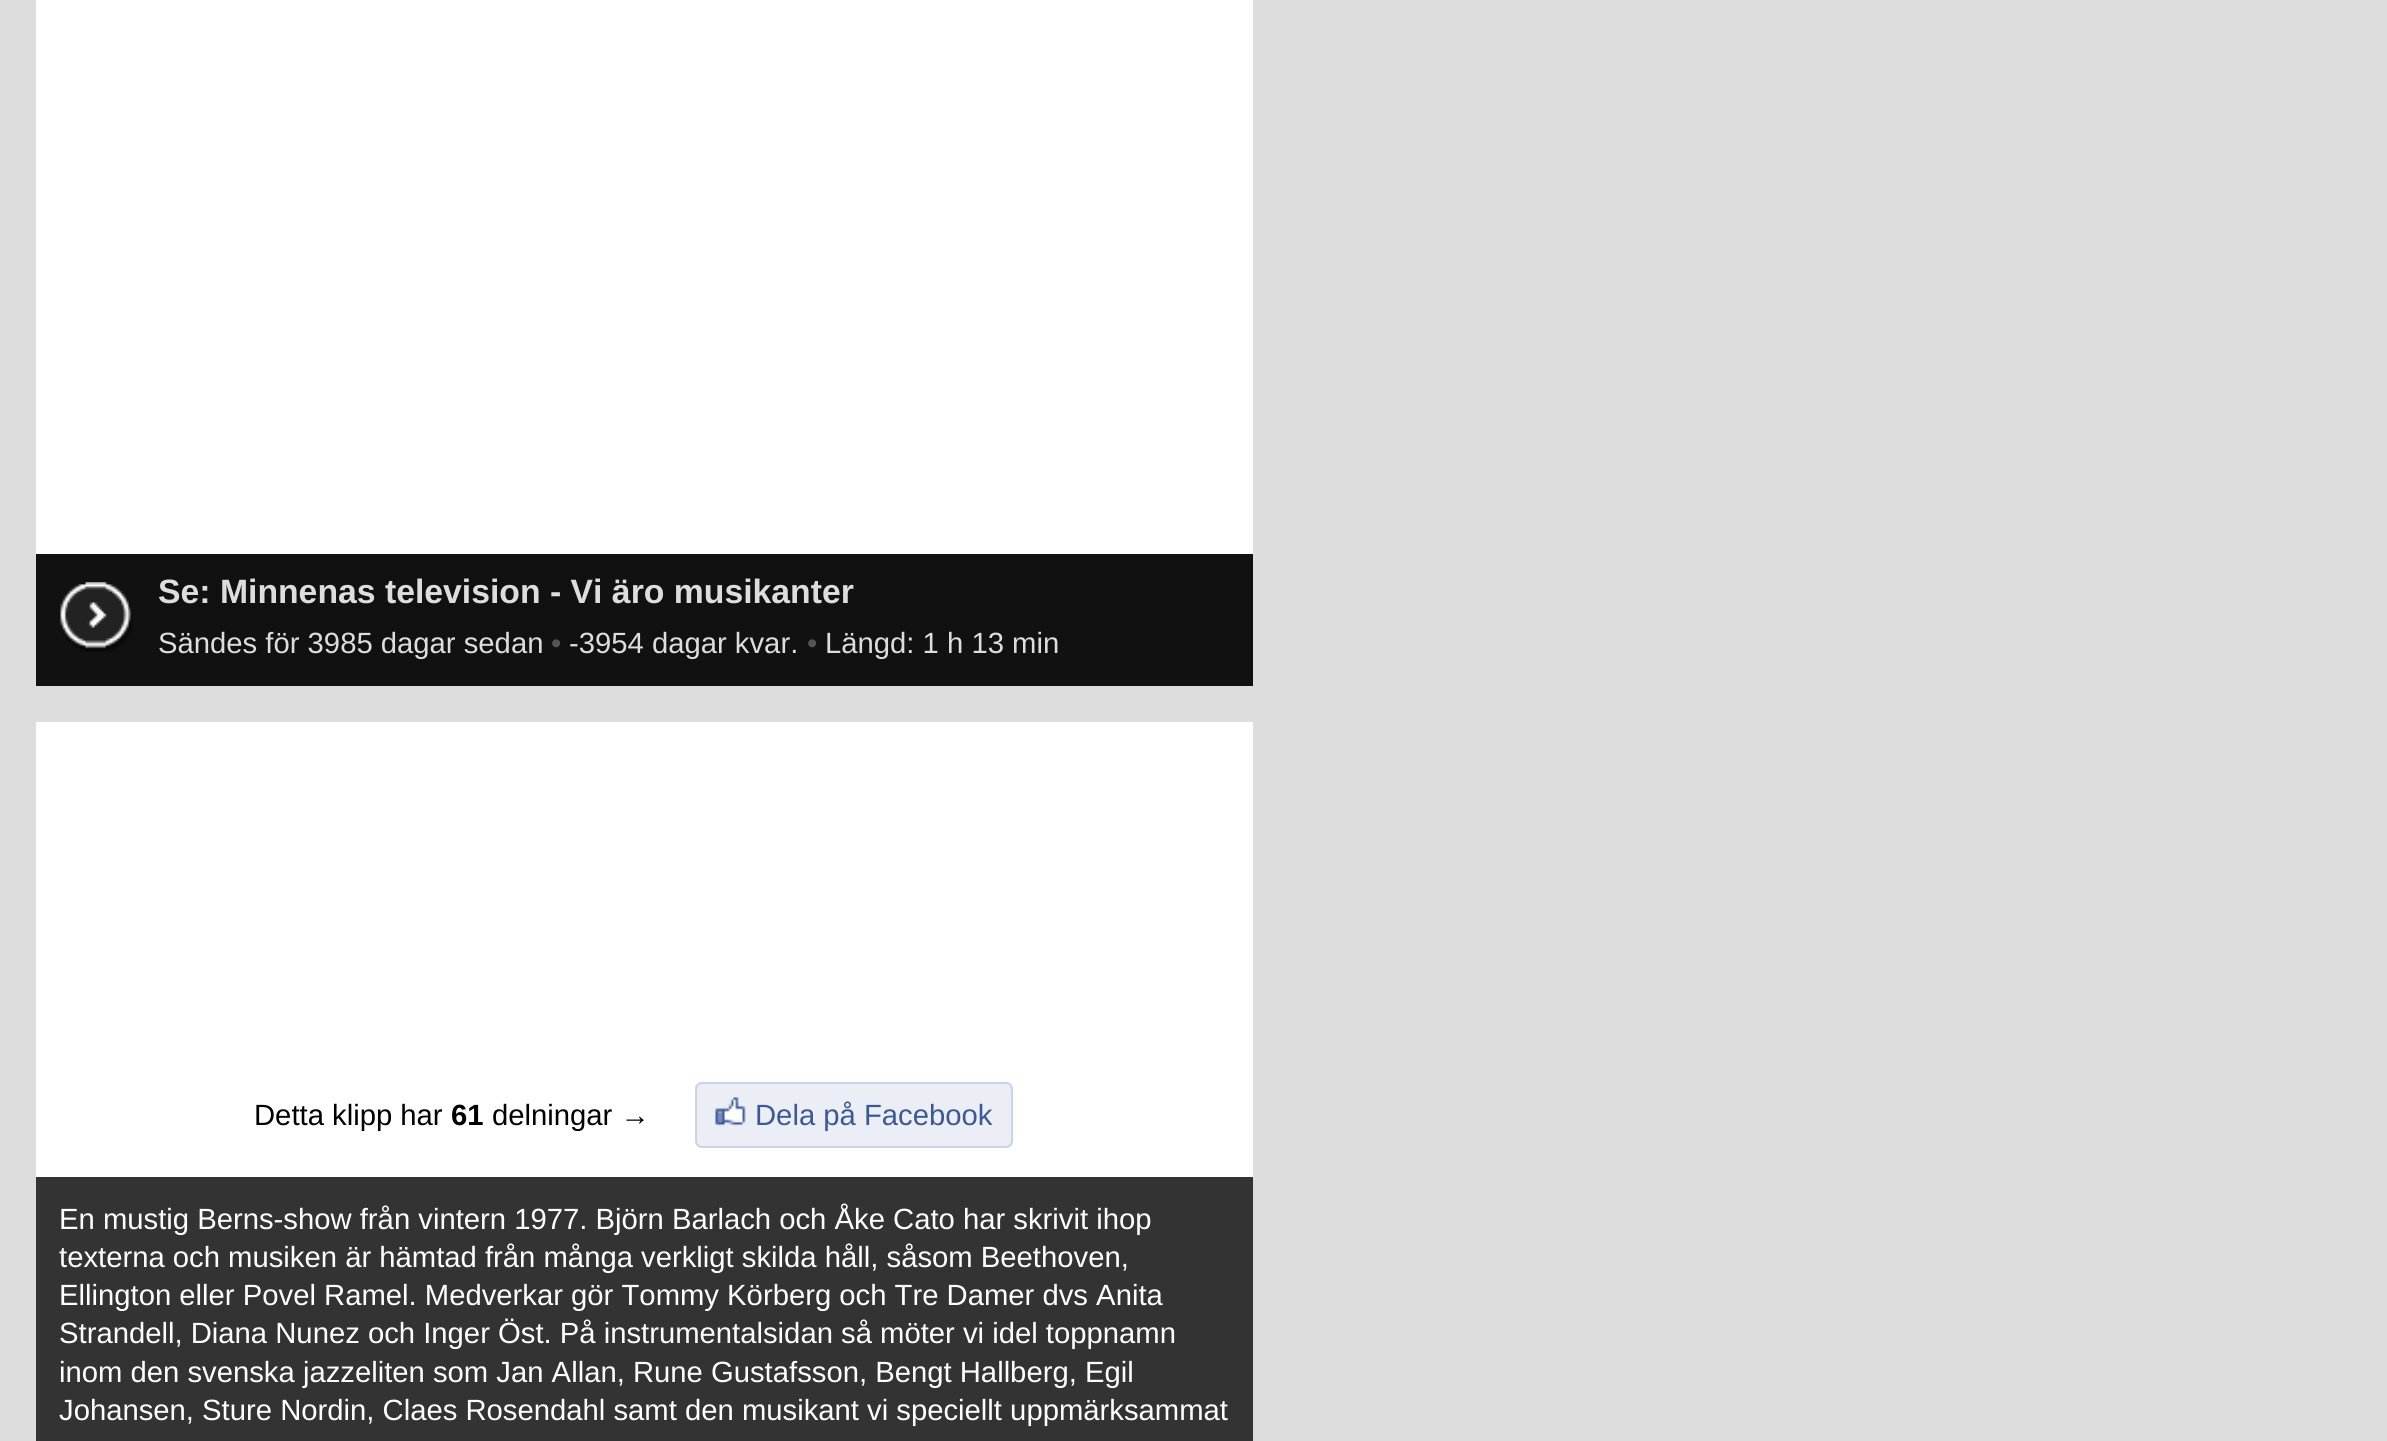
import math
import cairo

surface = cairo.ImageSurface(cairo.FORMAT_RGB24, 2387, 1441)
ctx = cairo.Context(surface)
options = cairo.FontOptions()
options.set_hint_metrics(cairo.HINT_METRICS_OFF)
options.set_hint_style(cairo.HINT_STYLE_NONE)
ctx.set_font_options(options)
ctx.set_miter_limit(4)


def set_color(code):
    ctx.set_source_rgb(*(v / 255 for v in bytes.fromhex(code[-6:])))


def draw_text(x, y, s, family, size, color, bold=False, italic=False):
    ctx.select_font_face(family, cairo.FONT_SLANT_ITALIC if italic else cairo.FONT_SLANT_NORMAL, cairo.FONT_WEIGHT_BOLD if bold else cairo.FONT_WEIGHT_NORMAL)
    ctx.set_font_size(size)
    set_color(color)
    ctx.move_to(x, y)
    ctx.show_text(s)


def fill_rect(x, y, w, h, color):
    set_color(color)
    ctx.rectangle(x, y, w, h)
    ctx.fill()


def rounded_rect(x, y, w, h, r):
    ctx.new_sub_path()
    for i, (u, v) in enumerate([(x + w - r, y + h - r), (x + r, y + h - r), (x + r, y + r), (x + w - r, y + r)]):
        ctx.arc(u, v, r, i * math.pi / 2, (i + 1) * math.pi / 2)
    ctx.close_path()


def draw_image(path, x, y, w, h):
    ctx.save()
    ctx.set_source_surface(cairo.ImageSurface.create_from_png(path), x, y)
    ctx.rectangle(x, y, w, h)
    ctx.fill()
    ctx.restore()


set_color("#dddddd")
ctx.paint()
fill_rect(36, 0, 1217, 554, "#ffffff")
fill_rect(36, 554, 1217, 132, "#111111")
draw_image("assets/img1.png", 60, 582, 73, 70)
draw_text(158, 603, "Se: Minnenas television - Vi äro musikanter", "Liberation Sans", 33.75, "#dddddd", bold=True)
draw_text(158, 653, "Sändes för 3985 dagar sedan", "Liberation Sans", 29.25, "#dddddd")
draw_text(551, 653, "•", "Liberation Sans", 29.25, "#555555")
draw_text(569, 653, "-3954 dagar kvar.", "Liberation Sans", 29.25, "#dddddd")
draw_text(807, 653, "•", "Liberation Sans", 29.25, "#555555")
draw_text(825, 653, "Längd: 1 h 13 min", "Liberation Sans", 29.25, "#dddddd")
fill_rect(36, 722, 1217, 455, "#ffffff")
draw_text(254, 1125, "Detta klipp har", "Liberation Sans", 29.25, "#000000")
draw_text(451, 1125, "61", "Liberation Sans", 29.25, "#000000", bold=True)
draw_text(492, 1125, "delningar →", "Liberation Sans", 29.25, "#000000")
set_color("#eceef5")
rounded_rect(695, 1082, 318, 66, 7)
ctx.fill()
draw_image("assets/img2.png", 715, 1097, 31, 29)
rounded_rect(696, 1083, 316, 64, 6)
set_color("#cad4e7")
ctx.stroke()
draw_text(755, 1125, "Dela på Facebook", "Liberation Sans", 29.25, "#3b5998")
fill_rect(36, 1177, 1217, 264, "#333333")
draw_text(59, 1229, "En mustig Berns-show från vintern 1977. Björn Barlach och Åke Cato har skrivit ihop", "Liberation Sans", 29.25, "#ffffff")
draw_text(59, 1267, "texterna och musiken är hämtad från många verkligt skilda håll, såsom Beethoven,", "Liberation Sans", 29.25, "#ffffff")
draw_text(59, 1305, "Ellington eller Povel Ramel. Medverkar gör Tommy Körberg och Tre Damer dvs Anita", "Liberation Sans", 29.25, "#ffffff")
draw_text(59, 1343, "Strandell, Diana Nunez och Inger Öst. På instrumentalsidan så möter vi idel toppnamn", "Liberation Sans", 29.25, "#ffffff")
draw_text(59, 1382, "inom den svenska jazzeliten som Jan Allan, Rune Gustafsson, Bengt Hallberg, Egil", "Liberation Sans", 29.25, "#ffffff")
draw_text(59, 1420, "Johansen, Sture Nordin, Claes Rosendahl samt den musikant vi speciellt uppmärksammat", "Liberation Sans", 29.25, "#ffffff")
surface.write_to_png("output.png")
